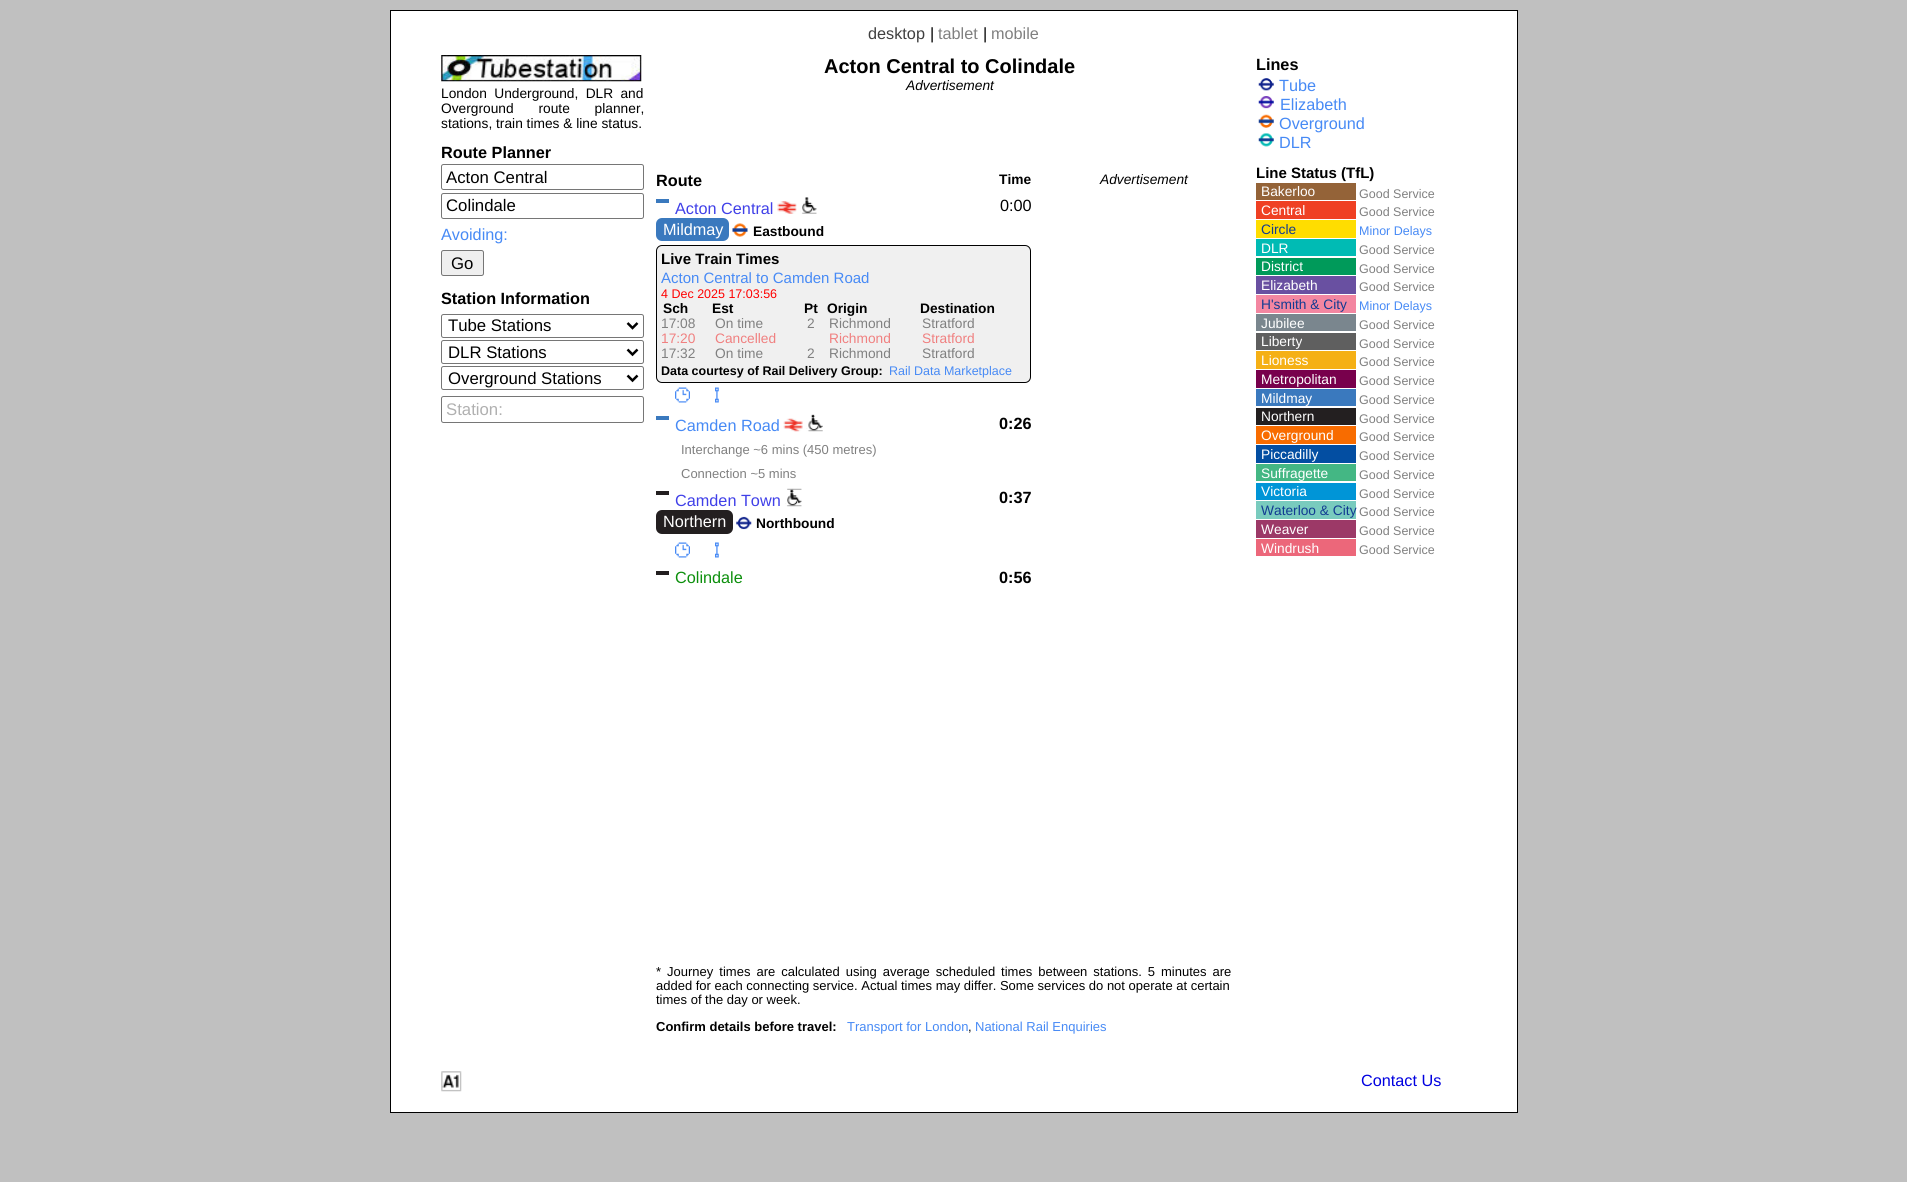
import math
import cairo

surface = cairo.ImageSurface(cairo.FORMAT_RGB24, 1907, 1182)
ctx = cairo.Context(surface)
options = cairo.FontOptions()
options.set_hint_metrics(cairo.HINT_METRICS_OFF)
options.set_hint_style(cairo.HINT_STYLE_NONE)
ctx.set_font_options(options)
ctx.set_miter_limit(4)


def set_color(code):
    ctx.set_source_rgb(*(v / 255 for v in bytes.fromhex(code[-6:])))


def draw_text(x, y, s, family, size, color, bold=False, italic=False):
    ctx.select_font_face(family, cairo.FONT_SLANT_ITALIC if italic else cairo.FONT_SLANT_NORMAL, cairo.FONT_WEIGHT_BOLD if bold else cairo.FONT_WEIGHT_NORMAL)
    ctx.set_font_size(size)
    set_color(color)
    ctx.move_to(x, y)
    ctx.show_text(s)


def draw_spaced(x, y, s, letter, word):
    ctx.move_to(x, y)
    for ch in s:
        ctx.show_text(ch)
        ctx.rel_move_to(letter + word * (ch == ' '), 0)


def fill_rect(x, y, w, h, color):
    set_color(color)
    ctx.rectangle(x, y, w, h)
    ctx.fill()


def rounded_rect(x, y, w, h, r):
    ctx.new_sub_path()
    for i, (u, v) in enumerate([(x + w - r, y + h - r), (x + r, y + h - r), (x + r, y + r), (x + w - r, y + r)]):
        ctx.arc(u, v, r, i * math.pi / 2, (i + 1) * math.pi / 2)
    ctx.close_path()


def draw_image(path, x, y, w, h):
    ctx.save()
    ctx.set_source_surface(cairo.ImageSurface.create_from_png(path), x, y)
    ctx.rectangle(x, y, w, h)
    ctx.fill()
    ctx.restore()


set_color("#c0c0c0")
ctx.paint()
set_color("#ffffff")
ctx.rectangle(390.5, 10.5, 1127, 1102)
ctx.fill_preserve()
set_color("#000000")
ctx.set_line_width(1)
ctx.stroke()
draw_text(868, 39, "desktop", "Liberation Sans", 16.25, "#404040")
draw_text(930, 39, "|", "Liberation Sans", 16.25, "#000000")
draw_text(938, 39, "tablet", "Liberation Sans", 16.25, "#808080")
draw_text(983, 39, "|", "Liberation Sans", 16.25, "#000000")
draw_text(991, 39, "mobile", "Liberation Sans", 16.25, "#808080")
draw_image("assets/img1.png", 441, 55, 201, 27)
ctx.set_font_size(13.75)
set_color("#000000")
draw_spaced(441, 98, "London Underground, DLR and", 0, 3.5)
draw_spaced(441, 113, "Overground route planner,", 0, 21)
draw_text(441, 128, "stations, train times & line status.", "Liberation Sans", 13.75, "#000000")
draw_text(441, 158, "Route Planner", "Liberation Sans", 16.25, "#000000", bold=True)
rounded_rect(441.5, 164.5, 202, 25, 2)
set_color("#767676")
ctx.stroke()
draw_text(446, 183, "Acton Central", "Liberation Sans", 16.75, "#000000")
rounded_rect(441.5, 193.5, 202, 25, 2)
set_color("#767676")
ctx.stroke()
draw_text(446, 211, "Colindale", "Liberation Sans", 16.75, "#000000")
draw_text(441, 240, "Avoiding:", "Liberation Sans", 16.25, "#478af5")
set_color("#efefef")
rounded_rect(441.5, 250.5, 42, 25, 2)
ctx.fill_preserve()
set_color("#767676")
ctx.stroke()
draw_text(451, 269, "Go", "Liberation Sans", 16.75, "#000000")
draw_text(441, 304, "Station Information", "Liberation Sans", 16.25, "#000000", bold=True)
rounded_rect(441.5, 314.5, 202, 23, 2)
set_color("#767676")
ctx.stroke()
ctx.new_path()
ctx.move_to(627.5, 323)
ctx.line_to(632.5, 328)
ctx.line_to(637.5, 323)
set_color("#000000")
ctx.set_line_width(2.5)
ctx.stroke()
draw_text(448, 331, "Tube Stations", "Liberation Sans", 16.75, "#000000")
rounded_rect(441.5, 340.5, 202, 23, 2)
set_color("#767676")
ctx.set_line_width(1)
ctx.stroke()
ctx.new_path()
ctx.move_to(627.5, 349.5)
ctx.line_to(632.5, 354.5)
ctx.line_to(637.5, 349.5)
set_color("#000000")
ctx.set_line_width(2.5)
ctx.stroke()
draw_text(448, 358, "DLR Stations", "Liberation Sans", 16.75, "#000000")
rounded_rect(441.5, 366.5, 202, 23, 2)
set_color("#767676")
ctx.set_line_width(1)
ctx.stroke()
ctx.new_path()
ctx.move_to(627.5, 375.5)
ctx.line_to(632.5, 380.5)
ctx.line_to(637.5, 375.5)
set_color("#000000")
ctx.set_line_width(2.5)
ctx.stroke()
draw_text(448, 384, "Overground Stations", "Liberation Sans", 16.75, "#000000")
rounded_rect(441.5, 396.5, 202, 26, 2)
set_color("#767676")
ctx.set_line_width(1)
ctx.stroke()
draw_text(446, 415, "Station:", "Liberation Sans", 16.75, "#b0b0b0")
draw_text(824, 73, "Acton Central to Colindale", "Liberation Sans", 20, "#000000", bold=True)
draw_text(906, 90, "Advertisement", "Liberation Sans", 13.75, "#000000", italic=True)
draw_text(656, 186, "Route", "Liberation Sans", 16.25, "#000000", bold=True)
draw_text(999, 184, "Time", "Liberation Sans", 13.75, "#000000", bold=True)
fill_rect(656, 199, 13, 4, "#3a79be")
draw_text(675, 214, "Acton Central", "Liberation Sans", 16.25, "#4040e8")
draw_image("assets/img2.png", 777, 201, 20, 13)
draw_image("assets/img3.png", 800, 197, 17, 17)
draw_text(1000, 211, "0:00", "Liberation Sans", 16.25, "#000000")
set_color("#3a79be")
rounded_rect(656, 218, 73, 23, 6)
ctx.fill()
draw_text(663, 235, "Mildmay", "Liberation Sans", 16.25, "#ffffff")
draw_image("assets/img4.png", 732, 223, 16, 14)
draw_text(753, 236, "Eastbound", "Liberation Sans", 13.75, "#000000", bold=True)
set_color("#f0f0f0")
rounded_rect(656.5, 245.5, 374, 137, 5.5)
ctx.fill_preserve()
set_color("#000000")
ctx.stroke()
draw_text(661, 264, "Live Train Times", "Liberation Sans", 15, "#000000", bold=True)
draw_text(661, 283, "Acton Central to Camden Road", "Liberation Sans", 15, "#478af5")
draw_text(661, 298, "4 Dec 2025 17:03:56", "Liberation Sans", 12.5, "#ff0000")
draw_text(663, 313, "Sch", "Liberation Sans", 13.75, "#000000", bold=True)
draw_text(712, 313, "Est", "Liberation Sans", 13.75, "#000000", bold=True)
draw_text(804, 313, "Pt", "Liberation Sans", 13.75, "#000000", bold=True)
draw_text(827, 313, "Origin", "Liberation Sans", 13.75, "#000000", bold=True)
draw_text(920, 313, "Destination", "Liberation Sans", 13.75, "#000000", bold=True)
draw_text(661, 328, "17:08", "Liberation Sans", 13.75, "#808080")
draw_text(715, 328, "On time", "Liberation Sans", 13.75, "#808080")
draw_text(807, 328, "2", "Liberation Sans", 13.75, "#808080")
draw_text(829, 328, "Richmond", "Liberation Sans", 13.75, "#808080")
draw_text(922, 328, "Stratford", "Liberation Sans", 13.75, "#808080")
draw_text(661, 343, "17:20", "Liberation Sans", 13.75, "#f08080")
draw_text(715, 343, "Cancelled", "Liberation Sans", 13.75, "#f08080")
draw_text(829, 343, "Richmond", "Liberation Sans", 13.75, "#f08080")
draw_text(922, 343, "Stratford", "Liberation Sans", 13.75, "#f08080")
draw_text(661, 358, "17:32", "Liberation Sans", 13.75, "#808080")
draw_text(715, 358, "On time", "Liberation Sans", 13.75, "#808080")
draw_text(807, 358, "2", "Liberation Sans", 13.75, "#808080")
draw_text(829, 358, "Richmond", "Liberation Sans", 13.75, "#808080")
draw_text(922, 358, "Stratford", "Liberation Sans", 13.75, "#808080")
draw_text(661, 375, "Data courtesy of Rail Delivery Group:", "Liberation Sans", 12.5, "#000000", bold=True)
draw_text(889, 375, "Rail Data Marketplace", "Liberation Sans", 12.5, "#478af5")
draw_image("assets/img5.png", 675, 387, 15, 16)
draw_image("assets/img6.png", 715, 387, 4, 16)
fill_rect(656, 416, 13, 4, "#3a79be")
draw_text(675, 431, "Camden Road", "Liberation Sans", 16.25, "#478af5")
draw_image("assets/img7.png", 783, 418, 20, 14)
draw_image("assets/img8.png", 806, 414, 17, 18)
draw_text(999, 429, "0:26", "Liberation Sans", 16.25, "#000000", bold=True)
draw_text(681, 454, "Interchange ~6 mins (450 metres)", "Liberation Sans", 13, "#808080")
draw_text(681, 478, "Connection ~5 mins", "Liberation Sans", 13, "#808080")
fill_rect(656, 491, 13, 4, "#231f20")
draw_text(675, 506, "Camden Town", "Liberation Sans", 16.25, "#4040e8")
draw_image("assets/img9.png", 785, 488, 17, 19)
draw_text(999, 503, "0:37", "Liberation Sans", 16.25, "#000000", bold=True)
set_color("#231f20")
rounded_rect(656, 510, 77, 24, 6)
ctx.fill()
draw_text(663, 527, "Northern", "Liberation Sans", 16.25, "#ffffff")
draw_image("assets/img10.png", 736, 516, 16, 14)
draw_text(756, 528, "Northbound", "Liberation Sans", 13.75, "#000000", bold=True)
draw_image("assets/img5.png", 675, 542, 15, 16)
draw_image("assets/img6.png", 715, 542, 4, 16)
fill_rect(656, 571, 13, 4, "#231f20")
draw_text(675, 583, "Colindale", "Liberation Sans", 16.25, "#0c8f0c")
draw_text(999, 583, "0:56", "Liberation Sans", 16.25, "#000000", bold=True)
draw_text(1100, 184, "Advertisement", "Liberation Sans", 13.75, "#000000", italic=True)
ctx.select_font_face("Liberation Sans")
ctx.set_font_size(13)
draw_spaced(656, 976, "* Journey times are calculated using average scheduled times between stations. 5 minutes are", 0, 2.4)
draw_text(656, 990, "added for each connecting service. Actual times may differ. Some services do not operate at certain", "Liberation Sans", 13, "#000000")
draw_text(656, 1004, "times of the day or week.", "Liberation Sans", 13, "#000000")
draw_text(656, 1031, "Confirm details before travel:", "Liberation Sans", 13, "#000000", bold=True)
draw_text(847, 1031, "Transport for London", "Liberation Sans", 13, "#478af5")
draw_text(968, 1031, ",", "Liberation Sans", 13, "#000000")
draw_text(975, 1031, "National Rail Enquiries", "Liberation Sans", 13, "#478af5")
draw_text(1256, 70, "Lines", "Liberation Sans", 16.25, "#000000", bold=True)
draw_image("assets/img11.png", 1258, 78, 16, 13)
draw_text(1279, 91, "Tube", "Liberation Sans", 16.25, "#478af5")
draw_image("assets/img12.png", 1258, 96, 16, 13)
draw_text(1280, 110, "Elizabeth", "Liberation Sans", 16.25, "#478af5")
draw_image("assets/img13.png", 1258, 114, 16, 14)
draw_text(1279, 129, "Overground", "Liberation Sans", 16.25, "#478af5")
draw_image("assets/img14.png", 1258, 133, 16, 14)
draw_text(1279, 148, "DLR", "Liberation Sans", 16.25, "#478af5")
draw_text(1256, 178, "Line Status (TfL)", "Liberation Sans", 15, "#000000", bold=True)
fill_rect(1256, 183, 100, 17, "#946338")
draw_text(1261, 196, "Bakerloo", "Liberation Sans", 13.75, "#ffffff")
draw_text(1359, 198, "Good Service", "Liberation Sans", 12.5, "#808080")
fill_rect(1256, 201, 100, 18, "#ef4023")
draw_text(1261, 215, "Central", "Liberation Sans", 13.75, "#ffffff")
draw_text(1359, 216, "Good Service", "Liberation Sans", 12.5, "#808080")
fill_rect(1256, 220, 100, 18, "#ffdd00")
draw_text(1261, 234, "Circle", "Liberation Sans", 13.75, "#113b92")
draw_text(1359, 235, "Minor Delays", "Liberation Sans", 12.5, "#478af5")
fill_rect(1256, 239, 100, 17, "#00bbb4")
draw_text(1261, 253, "DLR", "Liberation Sans", 13.75, "#ffffff")
draw_text(1359, 254, "Good Service", "Liberation Sans", 12.5, "#808080")
fill_rect(1256, 258, 100, 17, "#009a5a")
draw_text(1261, 271, "District", "Liberation Sans", 13.75, "#ffffff")
draw_text(1359, 273, "Good Service", "Liberation Sans", 12.5, "#808080")
fill_rect(1256, 276, 100, 18, "#6950a1")
draw_text(1261, 290, "Elizabeth", "Liberation Sans", 13.75, "#ffffff")
draw_text(1359, 291, "Good Service", "Liberation Sans", 12.5, "#808080")
fill_rect(1256, 295, 100, 18, "#f386a1")
draw_text(1261, 309, "H'smith & City", "Liberation Sans", 13.75, "#113b92")
draw_text(1359, 310, "Minor Delays", "Liberation Sans", 12.5, "#478af5")
fill_rect(1256, 314, 100, 17, "#7a868e")
draw_text(1261, 328, "Jubilee", "Liberation Sans", 13.75, "#ffffff")
draw_text(1359, 329, "Good Service", "Liberation Sans", 12.5, "#808080")
fill_rect(1256, 333, 100, 17, "#5f5f5f")
draw_text(1261, 346, "Liberty", "Liberation Sans", 13.75, "#ffffff")
draw_text(1359, 348, "Good Service", "Liberation Sans", 12.5, "#808080")
fill_rect(1256, 351, 100, 18, "#f5b015")
draw_text(1261, 365, "Lioness", "Liberation Sans", 13.75, "#ffffff")
draw_text(1359, 366, "Good Service", "Liberation Sans", 12.5, "#808080")
fill_rect(1256, 370, 100, 18, "#78004c")
draw_text(1261, 384, "Metropolitan", "Liberation Sans", 13.75, "#ffffff")
draw_text(1359, 385, "Good Service", "Liberation Sans", 12.5, "#808080")
fill_rect(1256, 389, 100, 17, "#3a79be")
draw_text(1261, 403, "Mildmay", "Liberation Sans", 13.75, "#ffffff")
draw_text(1359, 404, "Good Service", "Liberation Sans", 12.5, "#808080")
fill_rect(1256, 408, 100, 17, "#231f20")
draw_text(1261, 421, "Northern", "Liberation Sans", 13.75, "#ffffff")
draw_text(1359, 423, "Good Service", "Liberation Sans", 12.5, "#808080")
fill_rect(1256, 426, 100, 18, "#f86c00")
draw_text(1261, 440, "Overground", "Liberation Sans", 13.75, "#ffffff")
draw_text(1359, 441, "Good Service", "Liberation Sans", 12.5, "#808080")
fill_rect(1256, 445, 100, 18, "#034ea2")
draw_text(1261, 459, "Piccadilly", "Liberation Sans", 13.75, "#ffffff")
draw_text(1359, 460, "Good Service", "Liberation Sans", 12.5, "#808080")
fill_rect(1256, 464, 100, 17, "#44b784")
draw_text(1261, 478, "Suffragette", "Liberation Sans", 13.75, "#ffffff")
draw_text(1359, 479, "Good Service", "Liberation Sans", 12.5, "#808080")
fill_rect(1256, 483, 100, 17, "#0095d7")
draw_text(1261, 496, "Victoria", "Liberation Sans", 13.75, "#ffffff")
draw_text(1359, 498, "Good Service", "Liberation Sans", 12.5, "#808080")
fill_rect(1256, 501, 100, 18, "#79cbbe")
draw_text(1261, 515, "Waterloo & City", "Liberation Sans", 13.75, "#113b92")
draw_text(1359, 516, "Good Service", "Liberation Sans", 12.5, "#808080")
fill_rect(1256, 520, 100, 18, "#9c3967")
draw_text(1261, 534, "Weaver", "Liberation Sans", 13.75, "#ffffff")
draw_text(1359, 535, "Good Service", "Liberation Sans", 12.5, "#808080")
fill_rect(1256, 539, 100, 17, "#ec677a")
draw_text(1261, 553, "Windrush", "Liberation Sans", 13.75, "#ffffff")
draw_text(1359, 554, "Good Service", "Liberation Sans", 12.5, "#808080")
draw_image("assets/img15.png", 441, 1071, 21, 21)
draw_text(1361, 1086, "Contact Us", "Liberation Sans", 16.25, "#0000e0")
surface.write_to_png("output.png")
